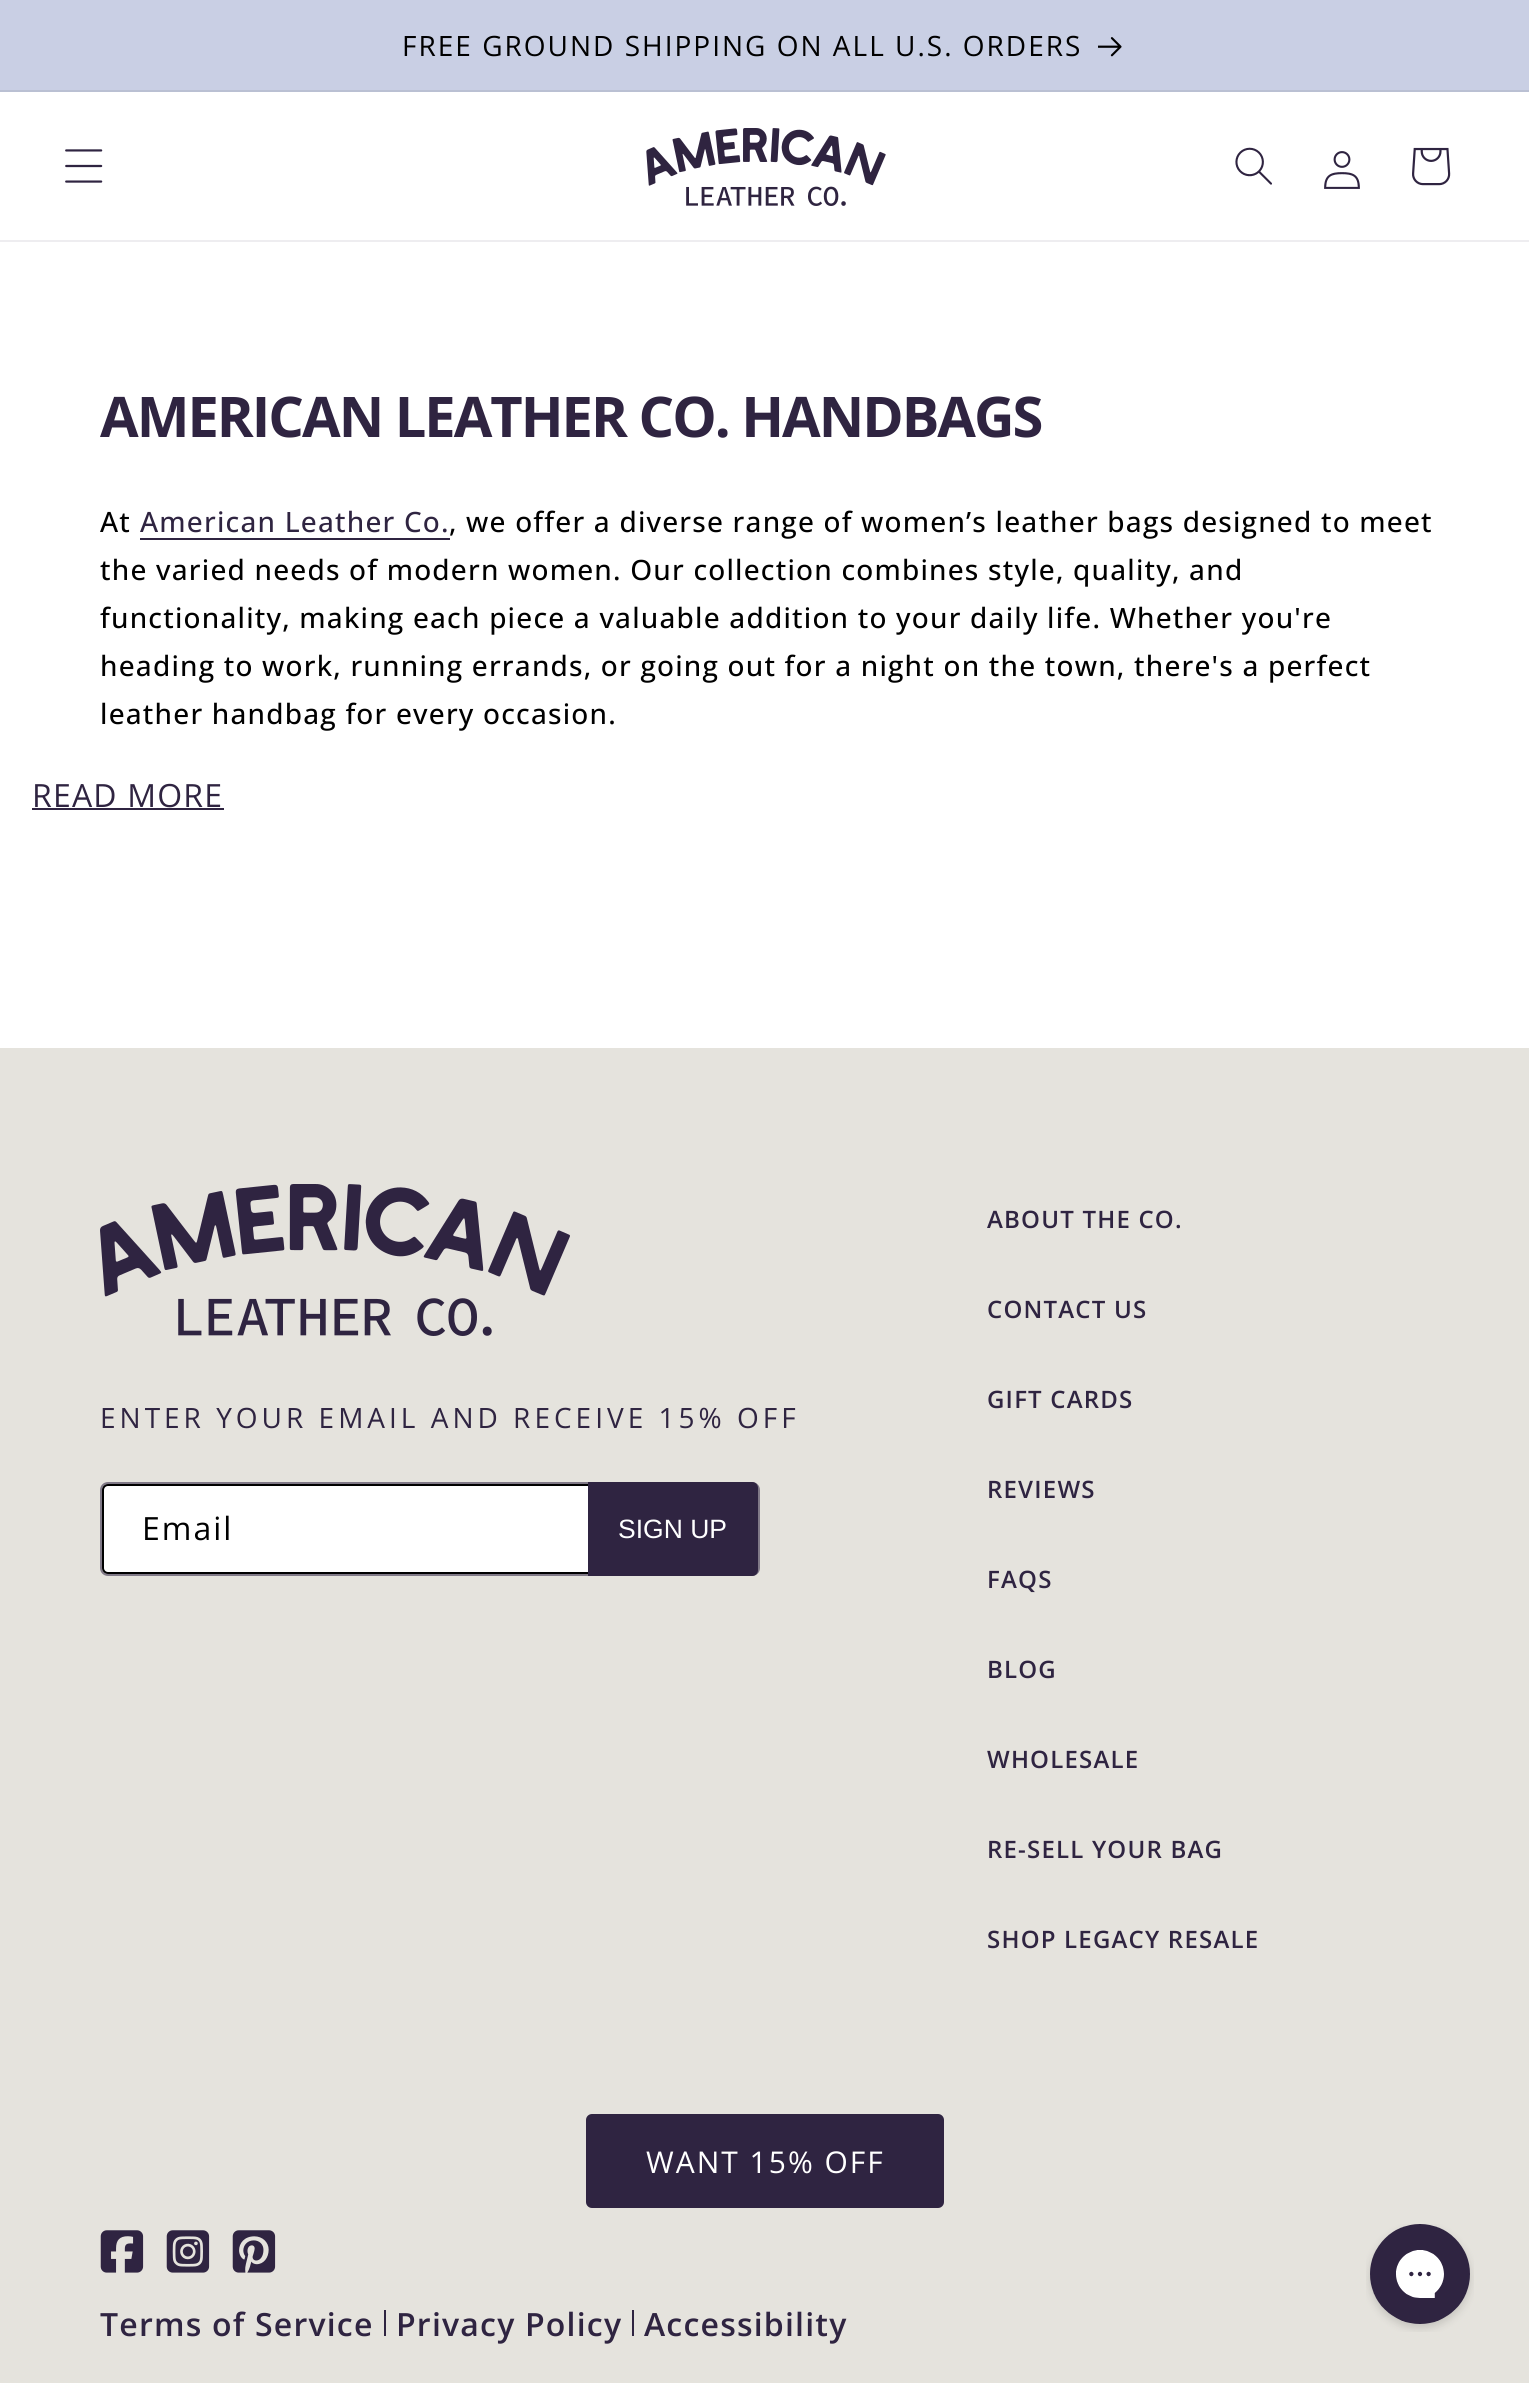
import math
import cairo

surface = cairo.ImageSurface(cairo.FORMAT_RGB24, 1529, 2383)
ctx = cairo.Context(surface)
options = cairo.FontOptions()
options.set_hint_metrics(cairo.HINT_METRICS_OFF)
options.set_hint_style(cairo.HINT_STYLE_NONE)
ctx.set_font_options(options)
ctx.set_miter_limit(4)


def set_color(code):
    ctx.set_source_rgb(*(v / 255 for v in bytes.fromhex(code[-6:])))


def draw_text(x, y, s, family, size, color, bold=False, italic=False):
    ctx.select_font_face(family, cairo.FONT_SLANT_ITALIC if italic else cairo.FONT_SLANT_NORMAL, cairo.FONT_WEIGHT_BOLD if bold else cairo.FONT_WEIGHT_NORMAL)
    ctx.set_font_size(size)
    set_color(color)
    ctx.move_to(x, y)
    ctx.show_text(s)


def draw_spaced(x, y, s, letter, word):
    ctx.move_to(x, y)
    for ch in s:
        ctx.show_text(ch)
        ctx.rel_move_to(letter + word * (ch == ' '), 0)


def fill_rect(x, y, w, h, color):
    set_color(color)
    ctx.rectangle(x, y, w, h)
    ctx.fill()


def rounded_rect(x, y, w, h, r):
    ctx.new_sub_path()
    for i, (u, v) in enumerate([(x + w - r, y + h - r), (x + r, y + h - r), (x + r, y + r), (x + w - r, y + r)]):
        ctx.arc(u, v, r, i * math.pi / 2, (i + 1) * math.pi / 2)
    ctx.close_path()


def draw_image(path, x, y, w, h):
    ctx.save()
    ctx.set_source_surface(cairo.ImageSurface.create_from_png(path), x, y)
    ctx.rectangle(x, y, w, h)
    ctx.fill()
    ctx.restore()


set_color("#ffffff")
ctx.paint()
fill_rect(0, 0, 1529, 90, "#c9cfe4")
fill_rect(0, 90, 1529, 2, "#bac0d3")
ctx.select_font_face("Open Sans")
ctx.set_font_size(28)
set_color("#000000")
draw_spaced(402, 56, "FREE GROUND SHIPPING ON ALL U.S. ORDERS", 2, 0)
draw_image("assets/img1.png", 1098, 37, 24, 20)
fill_rect(0, 240, 1529, 2, "#eeedf0")
draw_image("assets/img2.png", 65, 149, 38, 34)
draw_image("assets/img3.png", 646, 128, 240, 78)
draw_image("assets/img4.png", 1235, 147, 37, 38)
draw_image("assets/img5.png", 1324, 151, 36, 38)
draw_image("assets/img6.png", 1412, 147, 39, 39)
ctx.select_font_face("Open Sans", cairo.FONT_SLANT_NORMAL, cairo.FONT_WEIGHT_BOLD)
ctx.set_font_size(56)
set_color("#2f2441")
draw_spaced(100, 437, "AMERICAN LEATHER CO. HANDBAGS", -2, 0)
ctx.select_font_face("Open Sans Medium")
ctx.set_font_size(28)
set_color("#000000")
draw_spaced(100, 532, "At", 1.2, 0)
set_color("#2f2441")
draw_spaced(140, 532, "American Leather Co.", 1.2, 0)
fill_rect(140, 538, 310, 2, "#2f2441")
set_color("#000000")
draw_spaced(449, 532, ", we offer a diverse range of women’s leather bags designed to meet", 1.2, 0)
draw_spaced(100, 580, "the varied needs of modern women. Our collection combines style, quality, and", 1.2, 0)
draw_spaced(100, 628, "functionality, making each piece a valuable addition to your daily life. Whether you're", 1.2, 0)
draw_spaced(100, 676, "heading to work, running errands, or going out for a night on the town, there's a perfect", 1.2, 0)
draw_spaced(100, 724, "leather handbag for every occasion.", 1.2, 0)
ctx.select_font_face("Open Sans")
ctx.set_font_size(32)
set_color("#2f2441")
draw_spaced(32, 807, "READ MORE", 1.2, 0)
fill_rect(32, 808, 192, 2, "#2f2441")
fill_rect(0, 1048, 1529, 1335, "#e5e3dd")
draw_image("assets/img7.png", 100, 1184, 470, 152)
ctx.set_font_size(28)
set_color("#2f2441")
draw_spaced(100, 1428, "ENTER YOUR EMAIL AND RECEIVE 15% OFF", 4, 0)
set_color("#ffffff")
rounded_rect(103, 1485, 654, 88, 5)
ctx.fill_preserve()
set_color("#000000")
ctx.stroke()
rounded_rect(101, 1483, 658, 92, 7)
ctx.set_source_rgba(0.184, 0.141, 0.255, 0.55)
ctx.stroke()
ctx.set_font_size(32)
set_color("#000000")
draw_spaced(142, 1540, "Email", 2, 0)
set_color("#2f2441")
ctx.new_path()
ctx.move_to(588, 1482)
ctx.line_to(752, 1482)
ctx.curve_to(755.5, 1482, 758, 1484.5, 758, 1488)
ctx.line_to(758, 1570)
ctx.curve_to(758, 1573.5, 755.5, 1576, 752, 1576)
ctx.line_to(588, 1576)
ctx.close_path()
ctx.fill()
draw_text(618, 1538, "SIGN UP", "Liberation Sans", 26.5, "#ffffff")
ctx.select_font_face("Open Sans SemiBold")
ctx.set_font_size(24)
set_color("#2f2441")
draw_spaced(987, 1228, "ABOUT THE CO.", 1.2, 0)
draw_spaced(987, 1318, "CONTACT US", 1.2, 0)
draw_spaced(987, 1408, "GIFT CARDS", 1.2, 0)
draw_spaced(987, 1498, "REVIEWS", 1.2, 0)
draw_spaced(987, 1588, "FAQS", 1.2, 0)
draw_spaced(987, 1678, "BLOG", 1.2, 0)
draw_spaced(987, 1768, "WHOLESALE", 1.2, 0)
draw_spaced(987, 1858, "RE-SELL YOUR BAG", 1.2, 0)
draw_spaced(987, 1948, "SHOP LEGACY RESALE", 1.2, 0)
rounded_rect(586, 2114, 358, 94, 6)
ctx.fill()
ctx.select_font_face("Open Sans")
ctx.set_font_size(30)
set_color("#ffffff")
draw_spaced(646, 2173, "WANT 15% OFF", 2, 0)
draw_image("assets/img8.png", 100, 2230, 44, 43)
draw_image("assets/img9.png", 166, 2230, 44, 43)
draw_image("assets/img10.png", 232, 2230, 44, 43)
ctx.select_font_face("Open Sans SemiBold")
ctx.set_font_size(32)
set_color("#2f2441")
draw_spaced(100, 2336, "Terms of Service", 1.2, 0)
fill_rect(384, 2310, 2, 26, "#2f2441")
draw_spaced(396, 2336, "Privacy Policy", 1.2, 0)
fill_rect(632, 2310, 2, 26, "#2f2441")
draw_spaced(644, 2336, "Accessibility", 1.2, 0)
draw_image("assets/img11.png", 1366, 2224, 108, 108)
surface.write_to_png("output.png")
